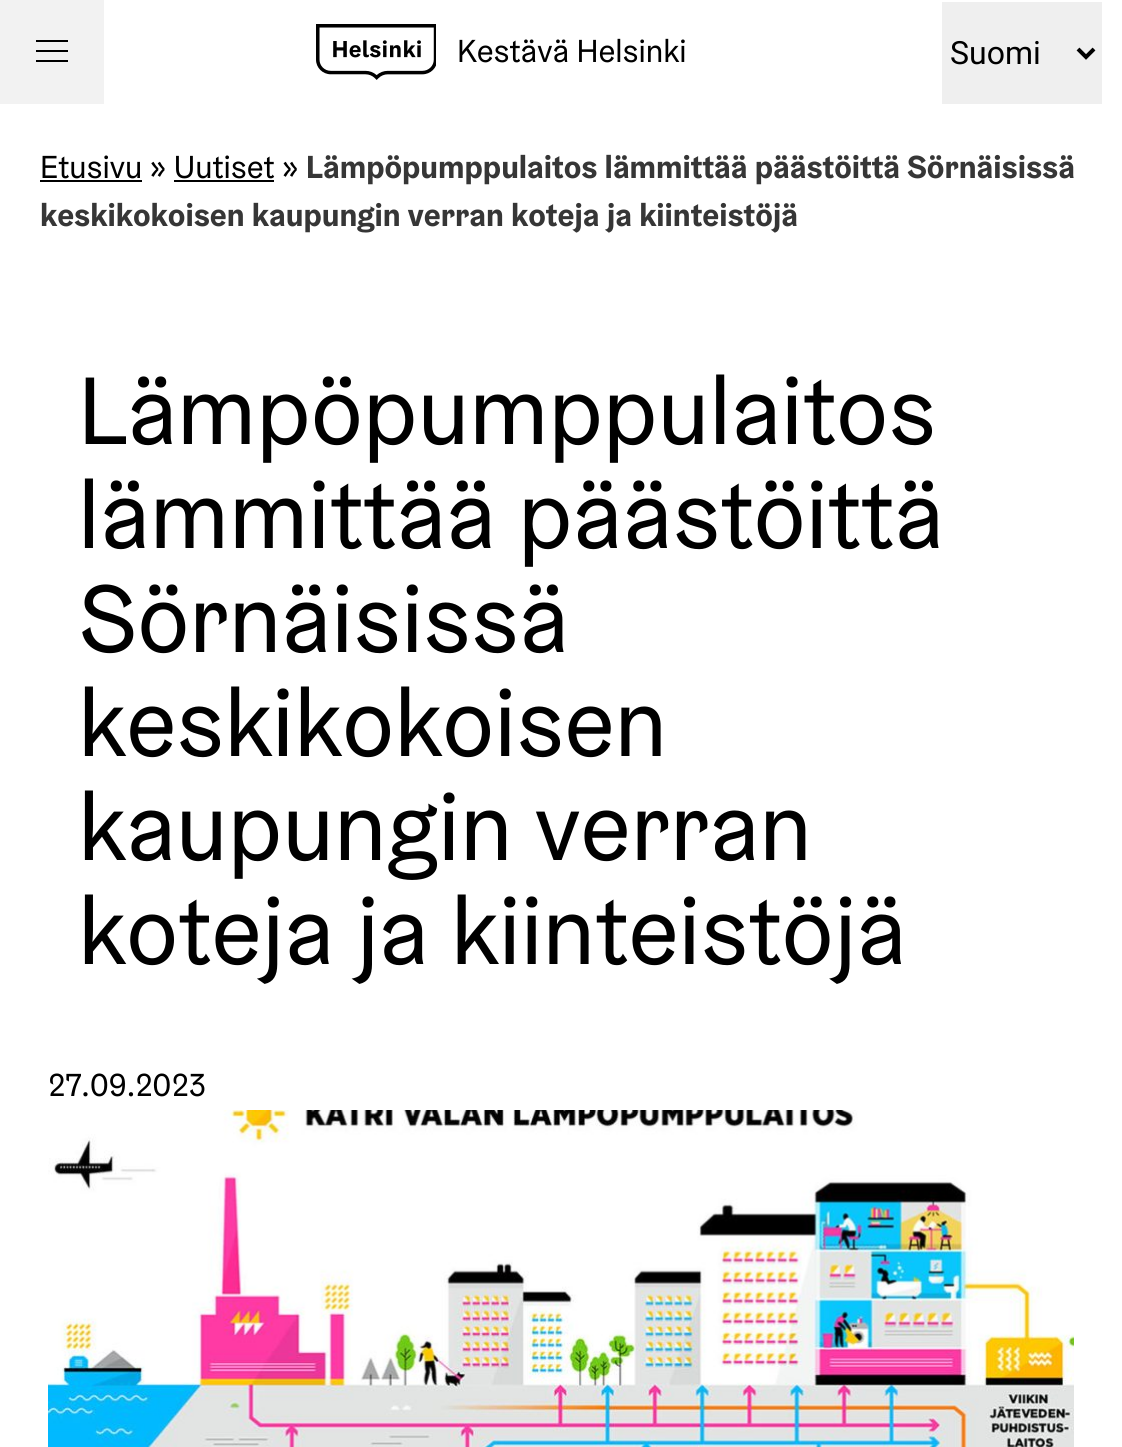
import math
import cairo

surface = cairo.ImageSurface(cairo.FORMAT_RGB24, 1122, 1447)
ctx = cairo.Context(surface)
options = cairo.FontOptions()
options.set_hint_metrics(cairo.HINT_METRICS_OFF)
options.set_hint_style(cairo.HINT_STYLE_NONE)
ctx.set_font_options(options)
ctx.set_miter_limit(4)


def set_color(code):
    ctx.set_source_rgb(*(v / 255 for v in bytes.fromhex(code[-6:])))


def draw_text(x, y, s, family, size, color, bold=False, italic=False):
    ctx.select_font_face(family, cairo.FONT_SLANT_ITALIC if italic else cairo.FONT_SLANT_NORMAL, cairo.FONT_WEIGHT_BOLD if bold else cairo.FONT_WEIGHT_NORMAL)
    ctx.set_font_size(size)
    set_color(color)
    ctx.move_to(x, y)
    ctx.show_text(s)


def fill_rect(x, y, w, h, color):
    set_color(color)
    ctx.rectangle(x, y, w, h)
    ctx.fill()


def draw_image(path, x, y, w, h):
    ctx.save()
    ctx.set_source_surface(cairo.ImageSurface.create_from_png(path), x, y)
    ctx.rectangle(x, y, w, h)
    ctx.fill()
    ctx.restore()


set_color("#ffffff")
ctx.paint()
fill_rect(0, 0, 104, 104, "#f2f2f2")
fill_rect(36, 40, 32, 2, "#000000")
fill_rect(36, 50, 32, 2, "#000000")
fill_rect(36, 60, 32, 2, "#000000")
draw_image("assets/img1.png", 316, 24, 120, 56)
draw_text(457, 62, "Kestävä Helsinki", "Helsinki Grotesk", 32, "#000000")
fill_rect(942, 2, 160, 102, "#efefef")
ctx.new_path()
ctx.move_to(1078, 49)
ctx.line_to(1086, 57)
ctx.line_to(1094, 49)
set_color("#000000")
ctx.set_line_width(4)
ctx.stroke()
draw_text(950, 64, "Suomi", "Roboto", 32, "#000000")
draw_text(40, 178, "Etusivu » Uutiset »", "Helsinki Grotesk", 32, "#000000")
fill_rect(40, 180, 102, 2, "#000000")
fill_rect(174, 180, 100, 2, "#000000")
draw_text(306, 178, "Lämpöpumppulaitos lämmittää päästöittä Sörnäisissä", "Helsinki Grotesk", 32, "#363636", bold=True)
draw_text(40, 226, "keskikokoisen kaupungin verran koteja ja kiinteistöjä", "Helsinki Grotesk", 32, "#363636", bold=True)
draw_text(78, 444, "Lämpöpumppulaitos", "Helsinki Grotesk", 96, "#000000")
draw_text(78, 548, "lämmittää päästöittä", "Helsinki Grotesk", 96, "#000000")
draw_text(78, 652, "Sörnäisissä", "Helsinki Grotesk", 96, "#000000")
draw_text(78, 756, "keskikokoisen", "Helsinki Grotesk", 96, "#000000")
draw_text(78, 860, "kaupungin verran", "Helsinki Grotesk", 96, "#000000")
draw_text(78, 964, "koteja ja kiinteistöjä", "Helsinki Grotesk", 96, "#000000")
draw_text(48, 1096, "27.09.2023", "Helsinki Grotesk", 32, "#000000")
draw_image("assets/img2.png", 48, 1110, 1026, 337)
surface.write_to_png("output.png")
